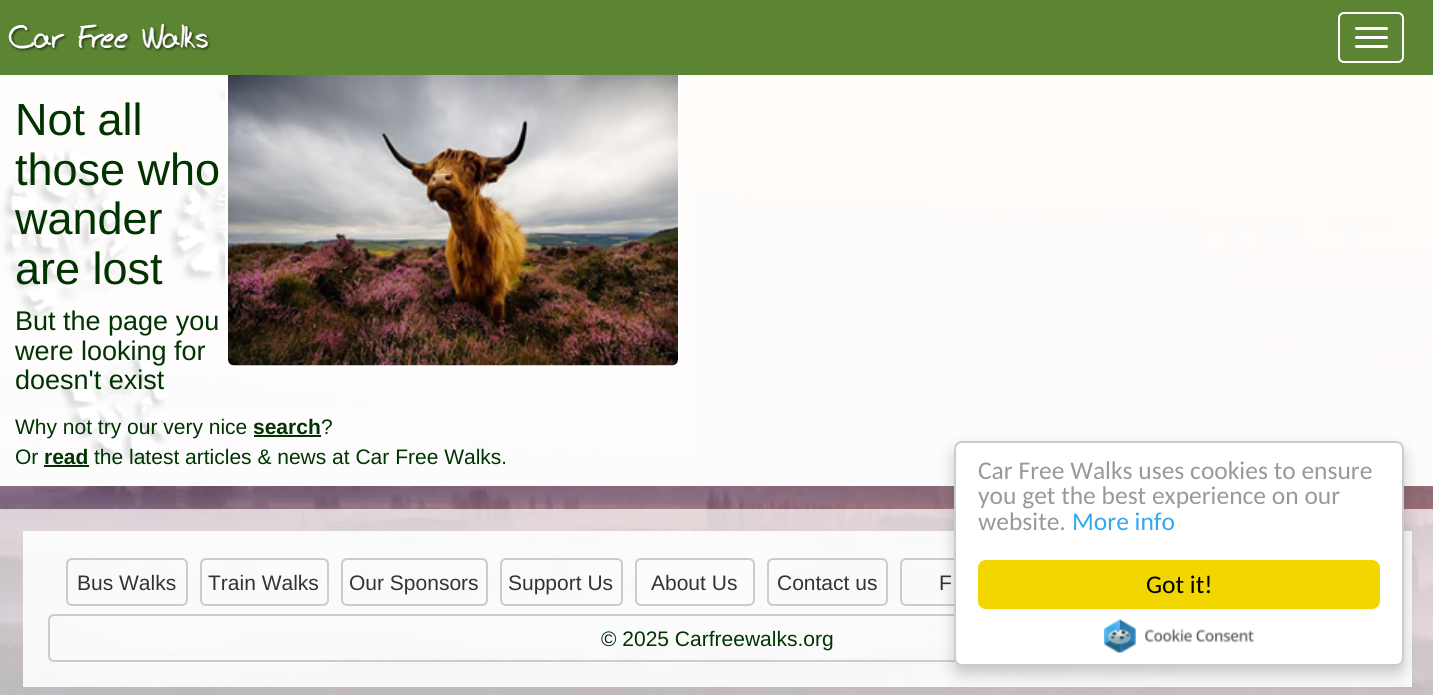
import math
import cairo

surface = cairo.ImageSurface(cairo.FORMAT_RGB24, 1433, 695)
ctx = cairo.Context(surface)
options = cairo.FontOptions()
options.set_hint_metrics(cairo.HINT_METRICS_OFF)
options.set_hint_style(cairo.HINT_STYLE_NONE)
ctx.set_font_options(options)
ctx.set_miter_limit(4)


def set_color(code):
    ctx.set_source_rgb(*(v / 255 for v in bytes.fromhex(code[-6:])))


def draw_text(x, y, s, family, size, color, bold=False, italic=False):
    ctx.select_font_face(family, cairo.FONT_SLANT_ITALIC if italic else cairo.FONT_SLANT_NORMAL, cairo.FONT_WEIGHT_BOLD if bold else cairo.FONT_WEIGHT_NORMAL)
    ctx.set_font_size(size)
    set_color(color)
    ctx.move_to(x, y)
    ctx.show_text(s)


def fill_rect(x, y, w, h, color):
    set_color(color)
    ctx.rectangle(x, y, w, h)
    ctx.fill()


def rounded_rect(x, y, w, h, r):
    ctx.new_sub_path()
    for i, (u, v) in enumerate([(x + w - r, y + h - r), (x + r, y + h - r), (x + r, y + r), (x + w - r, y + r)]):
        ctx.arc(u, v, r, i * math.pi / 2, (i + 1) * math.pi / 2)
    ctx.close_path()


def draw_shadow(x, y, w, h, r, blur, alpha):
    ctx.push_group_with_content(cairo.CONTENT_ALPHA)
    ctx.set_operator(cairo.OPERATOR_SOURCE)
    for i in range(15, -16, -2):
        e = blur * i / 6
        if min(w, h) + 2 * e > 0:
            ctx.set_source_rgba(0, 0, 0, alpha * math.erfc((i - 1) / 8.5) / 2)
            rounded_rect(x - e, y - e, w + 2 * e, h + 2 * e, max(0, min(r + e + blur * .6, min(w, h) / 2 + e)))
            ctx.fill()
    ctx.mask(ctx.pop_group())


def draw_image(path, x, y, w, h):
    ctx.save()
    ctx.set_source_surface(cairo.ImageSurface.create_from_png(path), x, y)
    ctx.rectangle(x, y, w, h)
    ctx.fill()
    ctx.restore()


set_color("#ffffff")
ctx.paint()
draw_image("assets/img1.png", 0, 75, 1433, 620)
ctx.set_source_rgba(1, 1, 1, 0.9)
ctx.rectangle(0, 75, 1433, 411)
ctx.fill()
draw_image("assets/img3.png", 0, 88, 225, 378)
ctx.set_source_rgba(1, 1, 1, 0.7)
ctx.rectangle(0, 75, 1433, 411)
ctx.fill()
ctx.set_source_rgba(1, 1, 1, 0.3)
rounded_rect(0, 50, 696, 436, 6)
ctx.fill()
rounded_rect(226.5, 66.5, 453, 301, 7.5)
set_color("#ffffff")
ctx.set_line_width(3)
ctx.stroke()
fill_rect(0, 0, 1433, 75, "#5b8433")
draw_image("assets/img2.png", 8, 23, 203, 29)
rounded_rect(1339, 13, 64, 49, 5)
set_color("#ffffff")
ctx.set_line_width(2)
ctx.stroke()
rounded_rect(1355, 27, 33, 3, 1.5)
ctx.fill()
rounded_rect(1355, 36, 33, 3, 1.5)
ctx.fill()
rounded_rect(1355, 45, 33, 3, 1.5)
ctx.fill()
draw_text(15, 135, "Not all", "Liberation Sans", 45, "#003300")
draw_text(15, 185, "those who", "Liberation Sans", 45, "#003300")
draw_text(15, 234, "wander", "Liberation Sans", 45, "#003300")
draw_text(15, 284, "are lost", "Liberation Sans", 45, "#003300")
draw_image("assets/img4.png", 228, 75, 450, 291)
draw_text(15, 330, "But the page you", "Liberation Sans", 27, "#003300")
draw_text(15, 360, "were looking for", "Liberation Sans", 27, "#003300")
draw_text(15, 389, "doesn't exist", "Liberation Sans", 27, "#003300")
draw_text(15, 434, "Why not try our very nice", "Liberation Sans", 21, "#003300")
draw_text(253, 434, "search", "Liberation Sans", 21, "#003300", bold=True)
fill_rect(254, 435, 67, 2, "#003300")
draw_text(321, 434, "?", "Liberation Sans", 21, "#003300")
draw_text(15, 464, "Or", "Liberation Sans", 21, "#003300")
draw_text(44, 464, "read", "Liberation Sans", 21, "#003300", bold=True)
fill_rect(44, 465, 45, 2, "#003300")
draw_text(94, 464, "the latest articles & news at Car Free Walks.", "Liberation Sans", 21, "#003300")
ctx.set_source_rgba(1, 1, 1, 0.7)
ctx.rectangle(0, 509, 1433, 186)
ctx.fill()
ctx.set_source_rgba(1, 1, 1, 0.9)
ctx.rectangle(23, 531, 1389, 156)
ctx.fill()
rounded_rect(901, 559, 118, 46, 5)
set_color("#cccccc")
ctx.stroke()
rounded_rect(49, 615, 1336, 46, 5)
ctx.stroke()
set_color("#000000")
draw_shadow(954, 449, 450, 225, 8, 7.5, 0.2)
set_color("#ffffff")
rounded_rect(955, 442, 448, 223, 7)
ctx.fill_preserve()
set_color("#cccccc")
ctx.stroke()
draw_text(978, 479, "Car Free Walks uses cookies to ensure", "Carlito", 25.5, "#999999")
draw_text(978, 504, "you get the best experience on our", "Carlito", 25.5, "#999999")
draw_text(978, 530, "website.", "Carlito", 25.5, "#999999")
draw_text(1072, 530, "More info", "Carlito", 25.5, "#31a8f0")
set_color("#f1d600")
rounded_rect(978, 560, 402, 49, 8)
ctx.fill()
draw_text(1146, 593, "Got it!", "Carlito", 25.5, "#000000")
draw_image("assets/img5.png", 1104, 619, 150, 34)
rounded_rect(67, 559, 120, 46, 5)
set_color("#cccccc")
ctx.stroke()
draw_text(77, 590, "Bus Walks", "Liberation Sans", 21, "#333333")
rounded_rect(201, 559, 127, 46, 5)
set_color("#cccccc")
ctx.stroke()
draw_text(208, 590, "Train Walks", "Liberation Sans", 21, "#333333")
rounded_rect(342, 559, 145, 46, 5)
set_color("#cccccc")
ctx.stroke()
draw_text(349, 590, "Our Sponsors", "Liberation Sans", 21, "#333333")
rounded_rect(501, 559, 121, 46, 5)
set_color("#cccccc")
ctx.stroke()
draw_text(508, 590, "Support Us", "Liberation Sans", 21, "#333333")
set_color("#fcfcfc")
rounded_rect(636, 559, 118, 46, 5)
ctx.fill_preserve()
set_color("#cccccc")
ctx.stroke()
draw_text(651, 590, "About Us", "Liberation Sans", 21, "#333333")
rounded_rect(768, 559, 119, 46, 5)
set_color("#cccccc")
ctx.stroke()
draw_text(777, 590, "Contact us", "Liberation Sans", 21, "#333333")
draw_text(939, 590, "F", "Liberation Sans", 21, "#333333")
draw_text(601, 646, "© 2025 Carfreewalks.org", "Liberation Sans", 21, "#003300")
surface.write_to_png("output.png")
